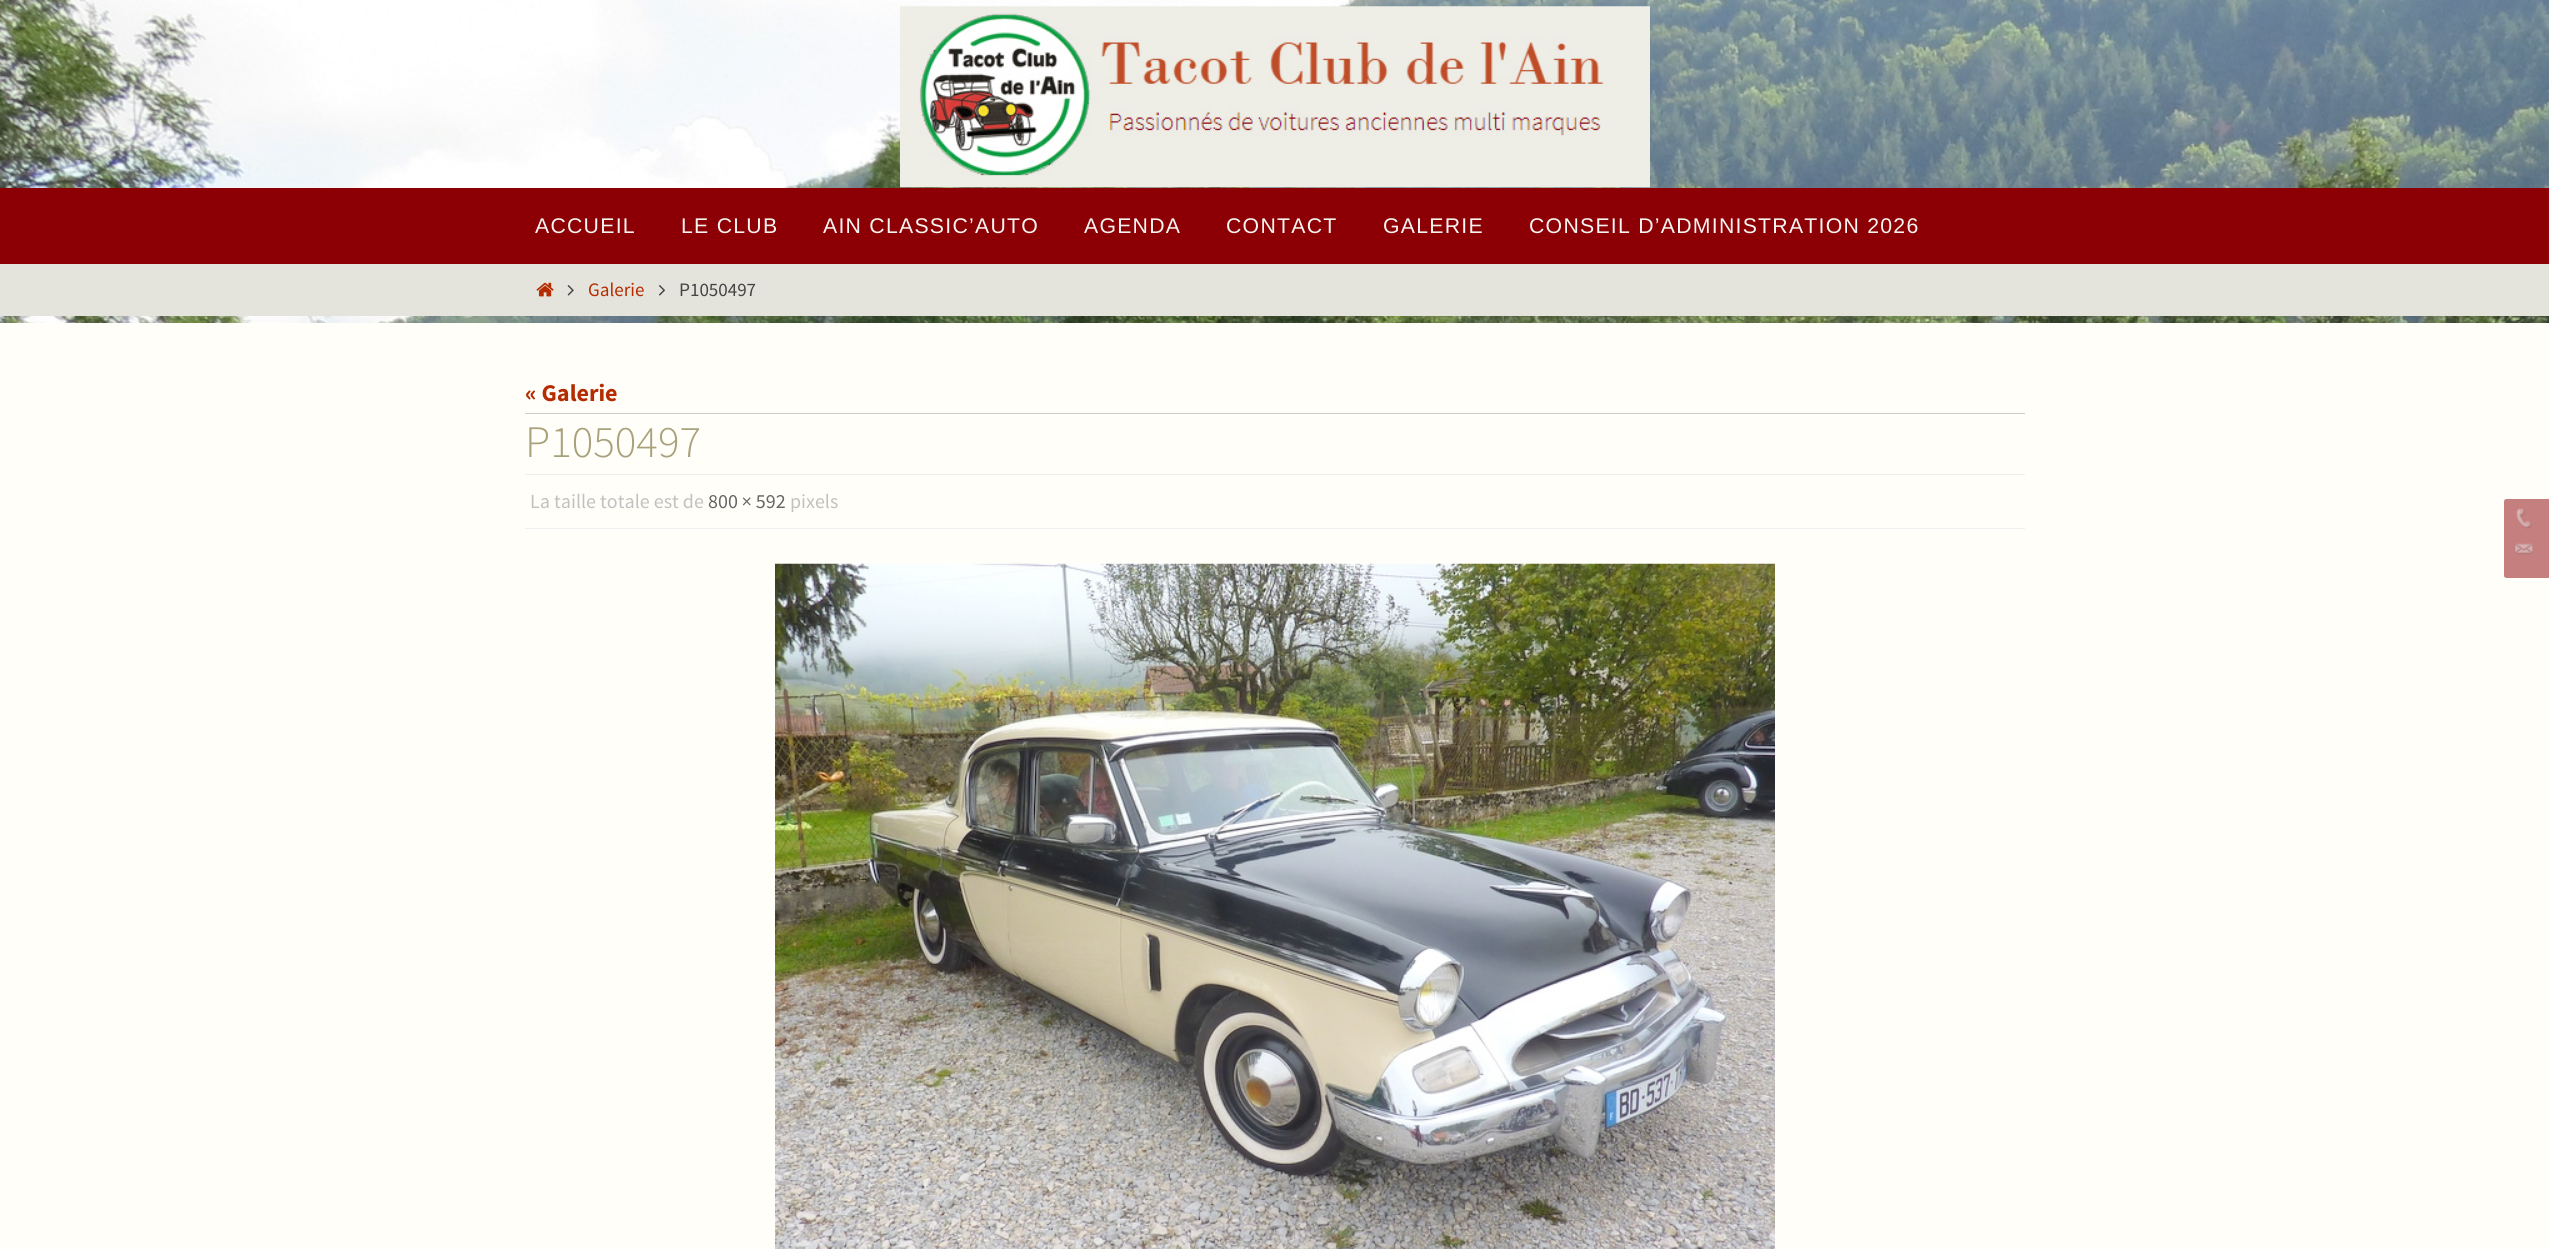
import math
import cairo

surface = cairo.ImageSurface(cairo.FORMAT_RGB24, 2549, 1249)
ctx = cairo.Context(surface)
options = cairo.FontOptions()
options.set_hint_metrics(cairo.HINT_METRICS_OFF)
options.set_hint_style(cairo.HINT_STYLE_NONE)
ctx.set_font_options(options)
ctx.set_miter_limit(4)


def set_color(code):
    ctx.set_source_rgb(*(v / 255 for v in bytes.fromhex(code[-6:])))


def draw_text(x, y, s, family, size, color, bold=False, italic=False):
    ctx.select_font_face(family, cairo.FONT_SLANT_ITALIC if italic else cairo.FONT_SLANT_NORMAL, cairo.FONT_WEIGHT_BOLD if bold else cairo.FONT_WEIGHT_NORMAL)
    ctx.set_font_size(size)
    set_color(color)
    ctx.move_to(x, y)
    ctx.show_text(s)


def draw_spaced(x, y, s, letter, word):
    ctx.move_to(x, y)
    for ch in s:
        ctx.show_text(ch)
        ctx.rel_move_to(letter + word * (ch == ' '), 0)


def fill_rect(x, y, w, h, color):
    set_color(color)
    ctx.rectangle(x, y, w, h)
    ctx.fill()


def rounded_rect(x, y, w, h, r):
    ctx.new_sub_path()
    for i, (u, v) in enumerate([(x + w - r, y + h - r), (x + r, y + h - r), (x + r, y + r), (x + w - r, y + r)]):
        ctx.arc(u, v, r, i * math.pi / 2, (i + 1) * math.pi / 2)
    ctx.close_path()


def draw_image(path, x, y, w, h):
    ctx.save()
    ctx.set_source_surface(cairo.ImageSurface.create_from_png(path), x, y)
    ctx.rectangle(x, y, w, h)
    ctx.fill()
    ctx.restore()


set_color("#ffffff")
ctx.paint()
draw_image("assets/img1.png", 0, 0, 2549, 323)
draw_image("assets/img2.png", 900, 6, 750, 182)
fill_rect(0, 188, 2549, 76, "#8c0005")
ctx.select_font_face("Liberation Sans")
ctx.set_font_size(21.25)
set_color("#f6f5f1")
draw_spaced(535, 233, "ACCUEIL", 1.25, 0)
draw_spaced(681, 233, "LE CLUB", 1.25, 0)
draw_spaced(823, 233, "AIN CLASSIC’AUTO", 1.25, 0)
draw_spaced(1084, 233, "AGENDA", 1.25, 0)
draw_spaced(1226, 233, "CONTACT", 1.25, 0)
draw_spaced(1383, 233, "GALERIE", 1.25, 0)
draw_spaced(1529, 233, "CONSEIL D’ADMINISTRATION 2026", 1.25, 0)
fill_rect(0, 264, 2549, 52, "#e4e3dc")
draw_image("assets/img3.png", 536, 282, 18, 15)
draw_image("assets/img4.png", 567, 285, 7, 11)
draw_text(588, 296, "Galerie", "Source Sans Pro", 19, "#b52c00")
draw_image("assets/img5.png", 658, 285, 7, 11)
draw_text(679, 296, "P1050497", "Source Sans Pro", 19, "#444444")
fill_rect(0, 323, 2549, 926, "#fffef9")
fill_rect(525, 413, 1500, 1, "#cccccc")
draw_text(525, 401, "« Galerie", "Source Sans Pro", 24, "#b52c00", bold=True)
draw_text(525, 457, "P1050497", "Source Sans Pro Light", 45, "#a9a17a")
fill_rect(525, 474, 1500, 1, "#eeeeee")
fill_rect(525, 528, 1500, 1, "#eeeeee")
draw_text(530, 508, "La taille totale est de", "Source Sans Pro", 20, "#c1c1c1")
draw_text(708, 508, "800 × 592", "Source Sans Pro", 20, "#666666")
draw_text(790, 508, "pixels", "Source Sans Pro", 20, "#c1c1c1")
draw_image("assets/img6.png", 775, 563, 1000, 686)
set_color("#c67f7f")
rounded_rect(2504, 499, 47, 47, 2.5)
ctx.fill()
draw_image("assets/img7.png", 2516, 508, 16, 21)
rounded_rect(2504, 530, 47, 48, 2.5)
ctx.fill()
draw_image("assets/img8.png", 2514, 543, 19, 12)
surface.write_to_png("output.png")
